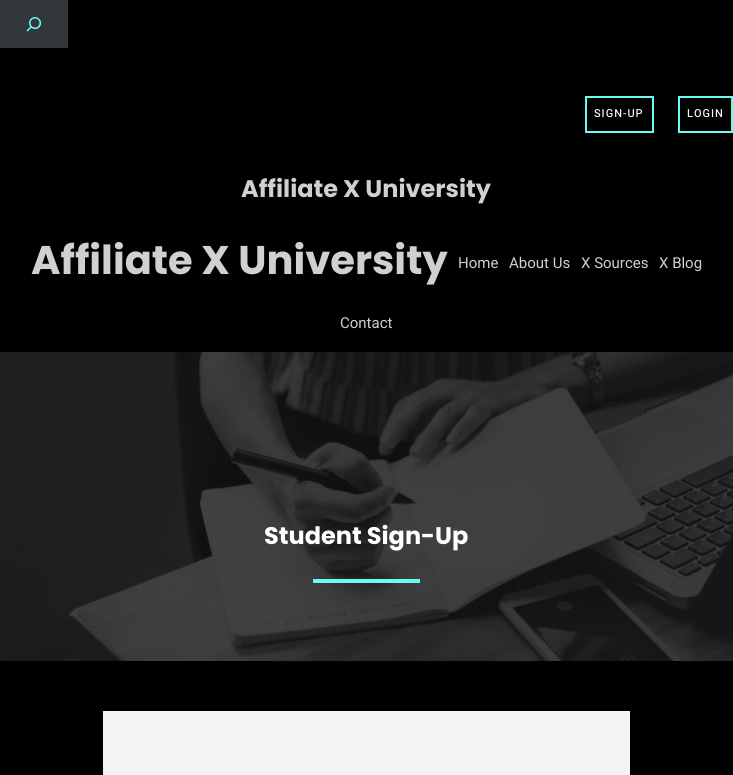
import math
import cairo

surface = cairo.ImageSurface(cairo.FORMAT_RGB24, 733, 775)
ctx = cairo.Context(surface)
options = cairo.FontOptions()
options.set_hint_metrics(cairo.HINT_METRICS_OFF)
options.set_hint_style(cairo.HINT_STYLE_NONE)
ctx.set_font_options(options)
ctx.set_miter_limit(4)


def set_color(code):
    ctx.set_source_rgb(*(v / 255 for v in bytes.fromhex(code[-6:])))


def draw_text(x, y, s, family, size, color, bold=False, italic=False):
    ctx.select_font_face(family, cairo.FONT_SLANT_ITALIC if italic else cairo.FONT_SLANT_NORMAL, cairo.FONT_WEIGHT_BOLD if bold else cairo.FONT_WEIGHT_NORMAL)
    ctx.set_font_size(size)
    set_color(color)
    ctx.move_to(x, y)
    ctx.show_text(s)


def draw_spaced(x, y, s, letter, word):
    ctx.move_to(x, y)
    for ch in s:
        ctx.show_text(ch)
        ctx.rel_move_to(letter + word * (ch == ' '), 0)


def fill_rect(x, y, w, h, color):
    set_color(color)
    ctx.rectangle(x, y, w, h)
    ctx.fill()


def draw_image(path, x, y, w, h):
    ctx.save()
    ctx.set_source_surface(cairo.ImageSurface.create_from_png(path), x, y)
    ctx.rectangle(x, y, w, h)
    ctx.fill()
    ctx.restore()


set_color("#000001")
ctx.paint()
fill_rect(0, 0, 68, 48, "#32373c")
draw_image("assets/img1.png", 26, 17, 16, 15)
ctx.rectangle(586, 97, 67, 35)
set_color("#66fcf1")
ctx.stroke()
ctx.select_font_face("Heebo Medium")
ctx.set_font_size(11)
set_color("#ffffff")
draw_spaced(594, 117, "SIGN-UP", 1, 0)
ctx.rectangle(679, 97, 53, 35)
set_color("#66fcf1")
ctx.stroke()
set_color("#ffffff")
draw_spaced(687, 117, "LOGIN", 1, 0)
draw_text(241, 197, "Affiliate X University", "Poppins", 24, "#d0d0d0", bold=True)
draw_text(31, 274, "Affiliate X University", "Poppins", 40, "#d0d0d0", bold=True)
draw_text(458, 268, "Home", "Roboto", 15, "#d0d0d0")
draw_text(509, 268, "About Us", "Roboto", 15, "#d0d0d0")
draw_text(581, 268, "X Sources", "Roboto", 15, "#d0d0d0")
draw_text(659, 268, "X Blog", "Roboto", 15, "#d0d0d0")
draw_text(340, 328, "Contact", "Roboto", 15, "#d0d0d0")
draw_image("assets/img2.png", 0, 352, 733, 309)
draw_text(264, 544, "Student Sign-Up", "Poppins", 24, "#ffffff", bold=True)
fill_rect(313, 579, 107, 4, "#66fcf1")
fill_rect(103, 711, 527, 64, "#f4f4f4")
surface.write_to_png("output.png")
